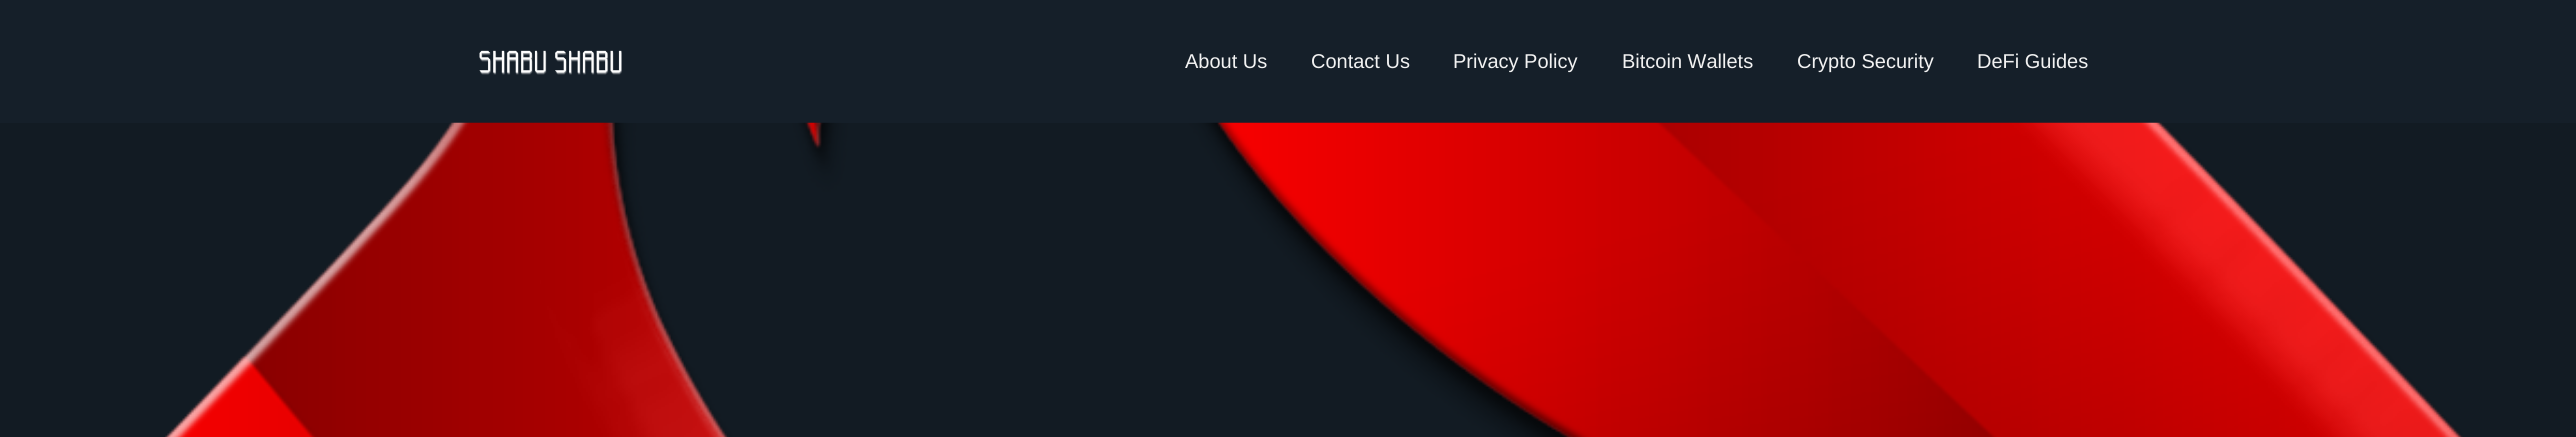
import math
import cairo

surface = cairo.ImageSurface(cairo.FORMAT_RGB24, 2576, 437)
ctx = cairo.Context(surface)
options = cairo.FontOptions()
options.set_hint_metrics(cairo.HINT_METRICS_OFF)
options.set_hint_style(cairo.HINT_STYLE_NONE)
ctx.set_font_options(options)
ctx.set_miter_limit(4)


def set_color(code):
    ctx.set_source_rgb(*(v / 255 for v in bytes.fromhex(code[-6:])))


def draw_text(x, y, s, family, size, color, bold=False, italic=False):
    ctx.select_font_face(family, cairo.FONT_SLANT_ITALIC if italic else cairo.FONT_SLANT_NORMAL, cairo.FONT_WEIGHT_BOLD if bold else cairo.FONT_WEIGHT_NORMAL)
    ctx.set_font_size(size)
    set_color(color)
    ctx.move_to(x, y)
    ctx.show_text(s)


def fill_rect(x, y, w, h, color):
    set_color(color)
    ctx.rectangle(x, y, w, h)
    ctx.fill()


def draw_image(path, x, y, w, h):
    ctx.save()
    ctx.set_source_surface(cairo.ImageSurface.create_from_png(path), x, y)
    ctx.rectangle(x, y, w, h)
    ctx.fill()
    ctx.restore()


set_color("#121b23")
ctx.paint()
fill_rect(0, 0, 2576, 123, "#151f29")
draw_image("assets/img1.png", 479, 50, 143, 25)
draw_text(1185, 68, "About Us", "Liberation Sans", 20, "#f2f2f2")
draw_text(1311, 68, "Contact Us", "Liberation Sans", 20, "#f2f2f2")
draw_text(1453, 68, "Privacy Policy", "Liberation Sans", 20, "#f2f2f2")
draw_text(1622, 68, "Bitcoin Wallets", "Liberation Sans", 20, "#f2f2f2")
draw_text(1797, 68, "Crypto Security", "Liberation Sans", 20, "#f2f2f2")
draw_text(1977, 68, "DeFi Guides", "Liberation Sans", 20, "#f2f2f2")
draw_image("assets/img2.png", 165, 122, 2298, 315)
surface.write_to_png("output.png")
